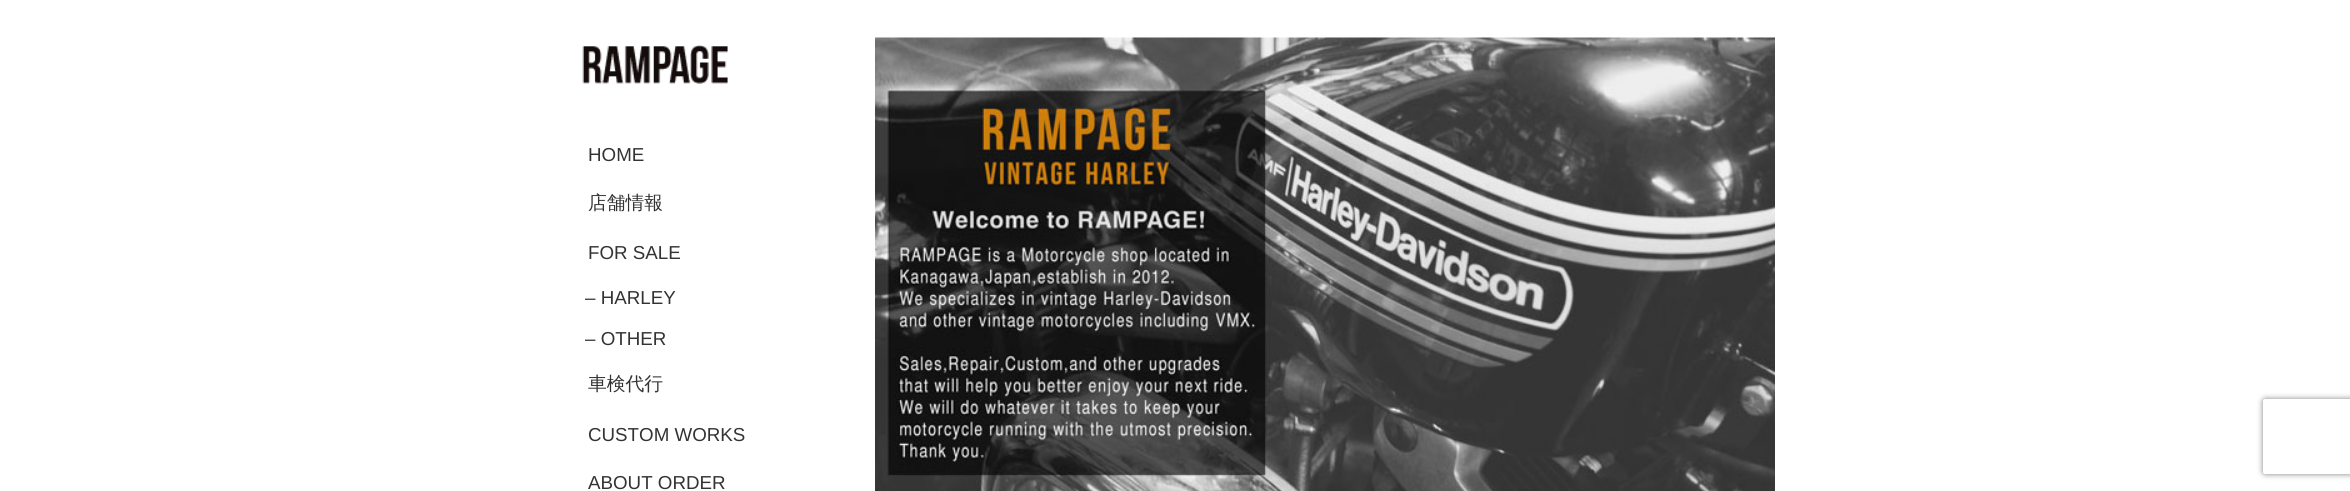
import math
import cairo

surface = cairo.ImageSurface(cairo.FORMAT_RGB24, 2350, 491)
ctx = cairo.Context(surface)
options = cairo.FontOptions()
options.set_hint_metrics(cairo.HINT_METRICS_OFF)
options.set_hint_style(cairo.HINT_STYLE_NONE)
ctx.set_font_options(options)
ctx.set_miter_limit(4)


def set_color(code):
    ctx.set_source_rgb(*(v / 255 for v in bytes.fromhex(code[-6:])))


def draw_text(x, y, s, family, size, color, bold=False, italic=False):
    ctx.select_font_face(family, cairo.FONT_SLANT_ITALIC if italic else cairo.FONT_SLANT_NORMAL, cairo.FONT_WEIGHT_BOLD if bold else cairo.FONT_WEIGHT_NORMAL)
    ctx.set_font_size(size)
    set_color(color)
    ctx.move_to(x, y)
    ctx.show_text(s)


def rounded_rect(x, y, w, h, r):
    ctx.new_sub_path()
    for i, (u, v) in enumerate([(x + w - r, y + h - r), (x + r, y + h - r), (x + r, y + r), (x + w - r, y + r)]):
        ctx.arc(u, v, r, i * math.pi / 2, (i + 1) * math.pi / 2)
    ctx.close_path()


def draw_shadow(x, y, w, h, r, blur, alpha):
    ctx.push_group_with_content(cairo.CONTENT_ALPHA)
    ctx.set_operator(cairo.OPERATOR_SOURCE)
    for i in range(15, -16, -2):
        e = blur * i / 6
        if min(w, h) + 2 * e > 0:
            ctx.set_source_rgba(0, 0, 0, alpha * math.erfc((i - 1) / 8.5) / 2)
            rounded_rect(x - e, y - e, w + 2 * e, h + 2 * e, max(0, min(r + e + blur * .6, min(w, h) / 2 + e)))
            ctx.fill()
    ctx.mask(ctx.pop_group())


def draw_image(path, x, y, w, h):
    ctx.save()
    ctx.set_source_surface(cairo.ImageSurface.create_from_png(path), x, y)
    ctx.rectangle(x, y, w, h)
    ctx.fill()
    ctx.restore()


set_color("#ffffff")
ctx.paint()
draw_image("assets/img1.png", 582, 45, 146, 39)
draw_text(588, 161, "HOME", "Liberation Sans", 18.75, "#333333")
draw_text(588, 209, "店舗情報", "WenQuanYi Zen Hei Medium", 18.75, "#333333")
draw_text(588, 259, "FOR SALE", "Liberation Sans", 18.75, "#333333")
draw_text(585, 304, "– HARLEY", "Liberation Sans", 18.75, "#333333")
draw_text(585, 345, "– OTHER", "Liberation Sans", 18.75, "#333333")
draw_text(588, 390, "車検代行", "WenQuanYi Zen Hei Medium", 18.75, "#333333")
draw_text(588, 441, "CUSTOM WORKS", "Liberation Sans", 18.75, "#333333")
draw_text(588, 489, "ABOUT ORDER", "Liberation Sans", 18.75, "#333333")
draw_image("assets/img2.png", 875, 37, 900, 454)
ctx.save()
ctx.set_fill_rule(cairo.FILL_RULE_EVEN_ODD)
ctx.new_path()
ctx.move_to(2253, 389)
ctx.line_to(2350, 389)
ctx.line_to(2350, 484)
ctx.line_to(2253, 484)
ctx.close_path()
ctx.move_to(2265.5, 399)
ctx.line_to(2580.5, 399)
ctx.curve_to(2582, 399, 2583, 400, 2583, 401.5)
ctx.line_to(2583, 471.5)
ctx.curve_to(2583, 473, 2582, 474, 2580.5, 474)
ctx.line_to(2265.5, 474)
ctx.curve_to(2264, 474, 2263, 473, 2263, 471.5)
ctx.line_to(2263, 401.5)
ctx.curve_to(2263, 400, 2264, 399, 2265.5, 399)
ctx.close_path()
ctx.clip()
set_color("#808080")
draw_shadow(2263, 399, 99, 75, 2.5, 3, 1)
ctx.restore()
surface.write_to_png("output.png")
